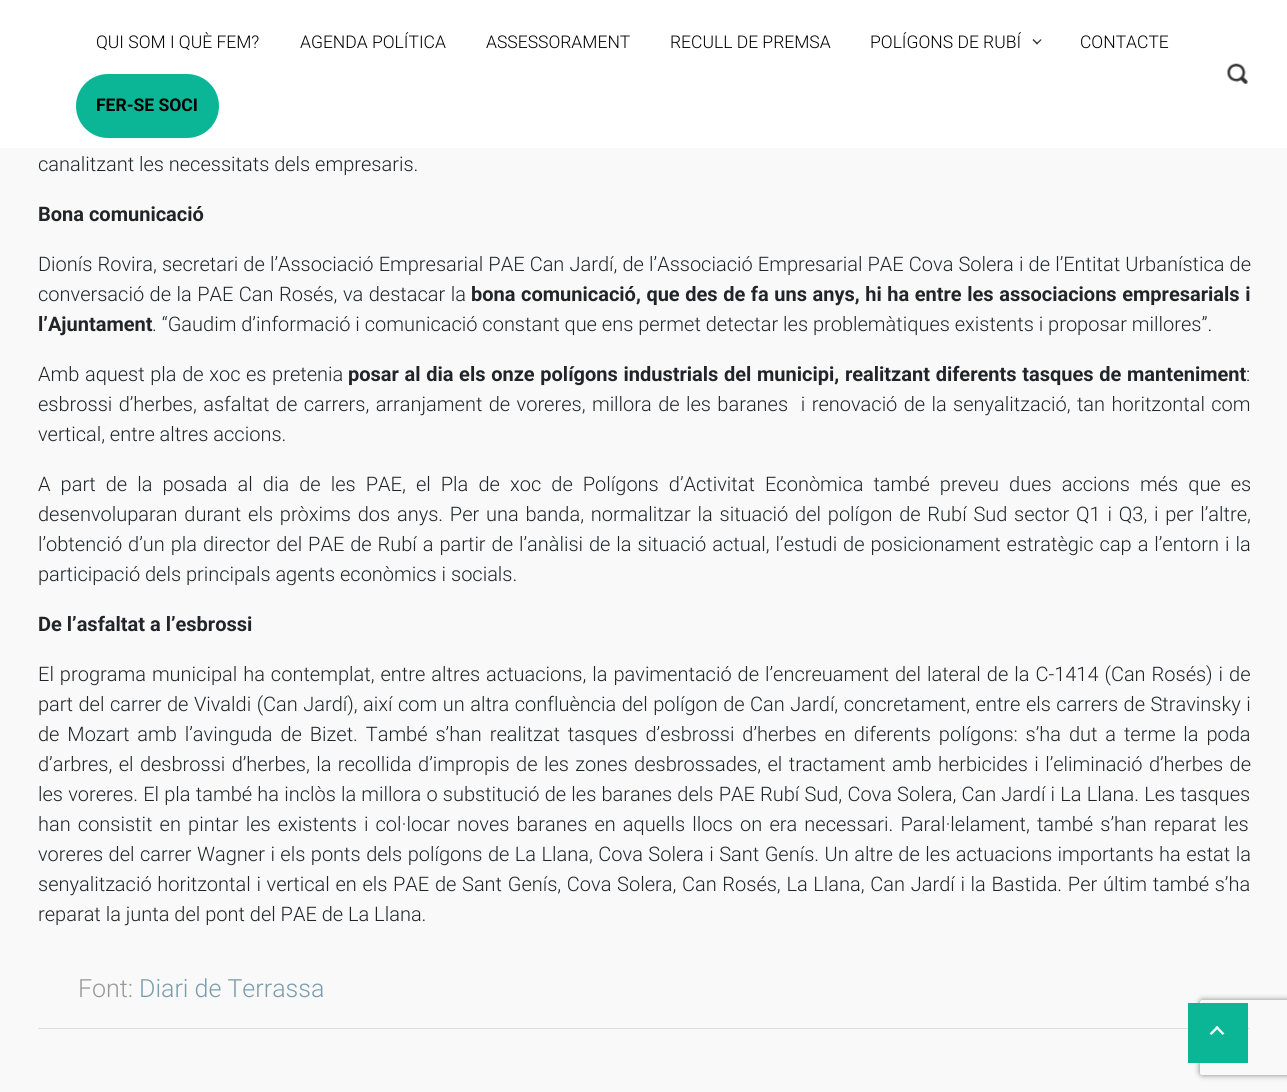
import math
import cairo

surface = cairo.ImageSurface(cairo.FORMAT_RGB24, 1287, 1092)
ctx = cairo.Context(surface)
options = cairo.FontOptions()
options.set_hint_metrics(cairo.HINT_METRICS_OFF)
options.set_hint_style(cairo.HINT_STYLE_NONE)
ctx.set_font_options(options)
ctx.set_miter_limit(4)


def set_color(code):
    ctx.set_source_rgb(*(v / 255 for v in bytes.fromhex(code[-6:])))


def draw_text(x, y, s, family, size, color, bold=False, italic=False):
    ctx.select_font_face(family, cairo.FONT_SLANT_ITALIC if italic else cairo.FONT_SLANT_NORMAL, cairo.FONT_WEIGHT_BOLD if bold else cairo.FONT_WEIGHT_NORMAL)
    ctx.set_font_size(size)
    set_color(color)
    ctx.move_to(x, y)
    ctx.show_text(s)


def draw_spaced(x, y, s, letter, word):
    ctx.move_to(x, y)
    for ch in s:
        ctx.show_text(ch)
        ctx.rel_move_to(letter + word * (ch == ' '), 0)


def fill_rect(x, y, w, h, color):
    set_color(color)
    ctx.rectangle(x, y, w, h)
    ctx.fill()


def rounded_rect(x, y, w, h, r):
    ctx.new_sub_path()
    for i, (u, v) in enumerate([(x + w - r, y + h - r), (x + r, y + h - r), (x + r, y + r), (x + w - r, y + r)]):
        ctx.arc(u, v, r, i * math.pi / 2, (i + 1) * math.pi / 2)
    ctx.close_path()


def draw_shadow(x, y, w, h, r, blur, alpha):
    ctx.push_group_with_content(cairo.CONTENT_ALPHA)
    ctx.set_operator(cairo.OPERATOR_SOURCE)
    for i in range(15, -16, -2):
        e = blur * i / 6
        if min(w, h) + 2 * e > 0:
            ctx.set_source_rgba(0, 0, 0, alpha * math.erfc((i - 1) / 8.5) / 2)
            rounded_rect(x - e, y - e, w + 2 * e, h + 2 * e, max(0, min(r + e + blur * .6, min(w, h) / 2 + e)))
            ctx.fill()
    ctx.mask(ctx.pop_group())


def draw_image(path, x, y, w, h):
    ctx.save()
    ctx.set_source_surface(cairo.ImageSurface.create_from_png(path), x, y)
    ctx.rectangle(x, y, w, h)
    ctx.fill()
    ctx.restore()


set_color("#f9f9f9")
ctx.paint()
fill_rect(0, 0, 1287, 148, "#ffffff")
draw_text(96, 48, "QUI SOM I QUÈ FEM?", "Roboto Light", 17.5, "#000000")
draw_text(300, 48, "AGENDA POLÍTICA", "Roboto Light", 17.5, "#000000")
draw_text(486, 48, "ASSESSORAMENT", "Roboto Light", 17.5, "#000000")
draw_text(670, 48, "RECULL DE PREMSA", "Roboto Light", 17.5, "#000000")
draw_text(870, 48, "POLÍGONS DE RUBÍ", "Roboto Light", 17.5, "#000000")
set_color("#333333")
ctx.new_path()
ctx.move_to(1041, 39)
ctx.line_to(1041.5, 40)
ctx.line_to(1037, 44.5)
ctx.line_to(1036, 43.5)
ctx.close_path()
ctx.fill()
ctx.new_path()
ctx.move_to(1033.5, 39)
ctx.line_to(1038, 43.5)
ctx.line_to(1037, 44.5)
ctx.line_to(1032.5, 40)
ctx.close_path()
ctx.fill()
draw_text(1080, 48, "CONTACTE", "Roboto Light", 17.5, "#000000")
set_color("#0bb697")
rounded_rect(76, 74, 143, 64, 32)
ctx.fill()
draw_text(96, 111, "FER-SE SOCI", "Roboto", 17.5, "#000000", bold=True)
draw_image("assets/img1.png", 1227, 63, 21, 21)
draw_text(38, 171, "canalitzant les necessitats dels empresaris.", "Roboto Light", 20, "#212529")
draw_text(38, 221, "Bona comunicació", "Roboto", 20, "#212529", bold=True)
ctx.select_font_face("Roboto Light")
draw_spaced(38, 271, "Dionís Rovira, secretari de l’Associació Empresarial PAE Can Jardí, de l’Associació Empresarial PAE Cova Solera i de l’Entitat Urbanística de", 0, 0.25)
draw_spaced(38, 301, "conversació de la PAE Can Rosés, va destacar la", 0, 0.6)
ctx.select_font_face("Roboto", cairo.FONT_SLANT_NORMAL, cairo.FONT_WEIGHT_BOLD)
draw_spaced(471, 301, "bona comunicació, que des de fa uns anys, hi ha entre les associacions empresarials i", 0, 0.6)
draw_text(38, 331, "l’Ajuntament", "Roboto", 20, "#212529", bold=True)
draw_text(152, 331, ". “Gaudim d’informació i comunicació constant que ens permet detectar les problemàtiques existents i proposar millores”.", "Roboto Light", 20, "#212529")
draw_spaced(38, 381, "Amb aquest pla de xoc es pretenia", 0, 0.7)
ctx.select_font_face("Roboto", cairo.FONT_SLANT_NORMAL, cairo.FONT_WEIGHT_BOLD)
draw_spaced(348, 381, "posar al dia els onze polígons industrials del municipi, realitzant diferents tasques de manteniment", 0, 0.7)
draw_text(1246, 381, ":", "Roboto Light", 20, "#212529")
draw_spaced(38, 411, "esbrossi d’herbes, asfaltat de carrers, arranjament de voreres, millora de les baranes  i renovació de la senyalització, tan horitzontal com", 0, 1.5)
draw_text(38, 441, "vertical, entre altres accions.", "Roboto Light", 20, "#212529")
draw_spaced(38, 491, "A part de la posada al dia de les PAE, el Pla de xoc de Polígons d’Activitat Econòmica també preveu dues accions més que es", 0, 5.2)
draw_spaced(38, 521, "desenvoluparan durant els pròxims dos anys. Per una banda, normalitzar la situació del polígon de Rubí Sud sector Q1 i Q3, i per l’altre,", 0, 1.9)
draw_spaced(38, 551, "l’obtenció d’un pla director del PAE de Rubí a partir de l’anàlisi de la situació actual, l’estudi de posicionament estratègic cap a l’entorn i la", 0, 1.05)
draw_text(38, 581, "participació dels principals agents econòmics i socials.", "Roboto Light", 20, "#212529")
draw_text(38, 631, "De l’asfaltat a l’esbrossi", "Roboto", 20, "#212529", bold=True)
ctx.select_font_face("Roboto Light")
draw_spaced(38, 681, "El programa municipal ha contemplat, entre altres actuacions, la pavimentació de l’encreuament del lateral de la C-1414 (Can Rosés) i de", 0, 1.1)
draw_spaced(38, 711, "part del carrer de Vivaldi (Can Jardí), així com un altra confluència del polígon de Can Jardí, concretament, entre els carrers de Stravinsky i", 0, 0.6)
draw_spaced(38, 741, "de Mozart amb l’avinguda de Bizet. També s’han realitzat tasques d’esbrossi d’herbes en diferents polígons: s’ha dut a terme la poda", 0, 3)
draw_spaced(38, 771, "d’arbres, el desbrossi d’herbes, la recollida d’impropis de les zones desbrossades, el tractament amb herbicides i l’eliminació d’herbes de", 0, 1.5)
draw_spaced(38, 801, "les voreres. El pla també ha inclòs la millora o substitució de les baranes dels PAE Rubí Sud, Cova Solera, Can Jardí i La Llana. Les tasques", 0, 0.3)
draw_spaced(38, 831, "han consistit en pintar les existents i col·locar noves baranes en aquells llocs on era necessari. Paral·lelament, també s’han reparat les", 0, 2.25)
draw_spaced(38, 861, "voreres del carrer Wagner i els ponts dels polígons de La Llana, Cova Solera i Sant Genís. Un altre de les actuacions importants ha estat la", 0, 0.6)
draw_spaced(38, 891, "senyalització horitzontal i vertical en els PAE de Sant Genís, Cova Solera, Can Rosés, La Llana, Can Jardí i la Bastida. Per últim també s’ha", 0, 0.8)
draw_text(38, 921, "reparat la junta del pont del PAE de La Llana.", "Roboto Light", 20, "#212529")
fill_rect(38, 1028, 1212, 1, "#e0dddd")
draw_text(78, 997, "Font:", "Roboto Light", 25, "#999999")
draw_text(139, 997, "Diari de Terrassa", "Roboto Light", 25, "#7a9cad")
ctx.save()
ctx.set_fill_rule(cairo.FILL_RULE_EVEN_ODD)
ctx.new_path()
ctx.move_to(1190, 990)
ctx.line_to(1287, 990)
ctx.line_to(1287, 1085)
ctx.line_to(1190, 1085)
ctx.close_path()
ctx.move_to(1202.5, 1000)
ctx.line_to(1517.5, 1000)
ctx.curve_to(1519, 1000, 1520, 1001, 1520, 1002.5)
ctx.line_to(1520, 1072.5)
ctx.curve_to(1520, 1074, 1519, 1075, 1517.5, 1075)
ctx.line_to(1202.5, 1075)
ctx.curve_to(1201, 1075, 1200, 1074, 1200, 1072.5)
ctx.line_to(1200, 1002.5)
ctx.curve_to(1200, 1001, 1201, 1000, 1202.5, 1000)
ctx.close_path()
ctx.clip()
set_color("#808080")
draw_shadow(1200, 1000, 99, 75, 2.5, 3, 1)
ctx.restore()
fill_rect(1188, 1003, 60, 60, "#0bb697")
set_color("#f4f4f4")
ctx.new_path()
ctx.move_to(1209.5, 1033.5)
ctx.line_to(1217, 1026)
ctx.line_to(1219, 1027.5)
ctx.line_to(1211.5, 1035)
ctx.close_path()
ctx.fill()
ctx.new_path()
ctx.move_to(1215.5, 1027.5)
ctx.line_to(1217, 1026)
ctx.line_to(1224.5, 1033.5)
ctx.line_to(1222.5, 1035)
ctx.close_path()
ctx.fill()
surface.write_to_png("output.png")
